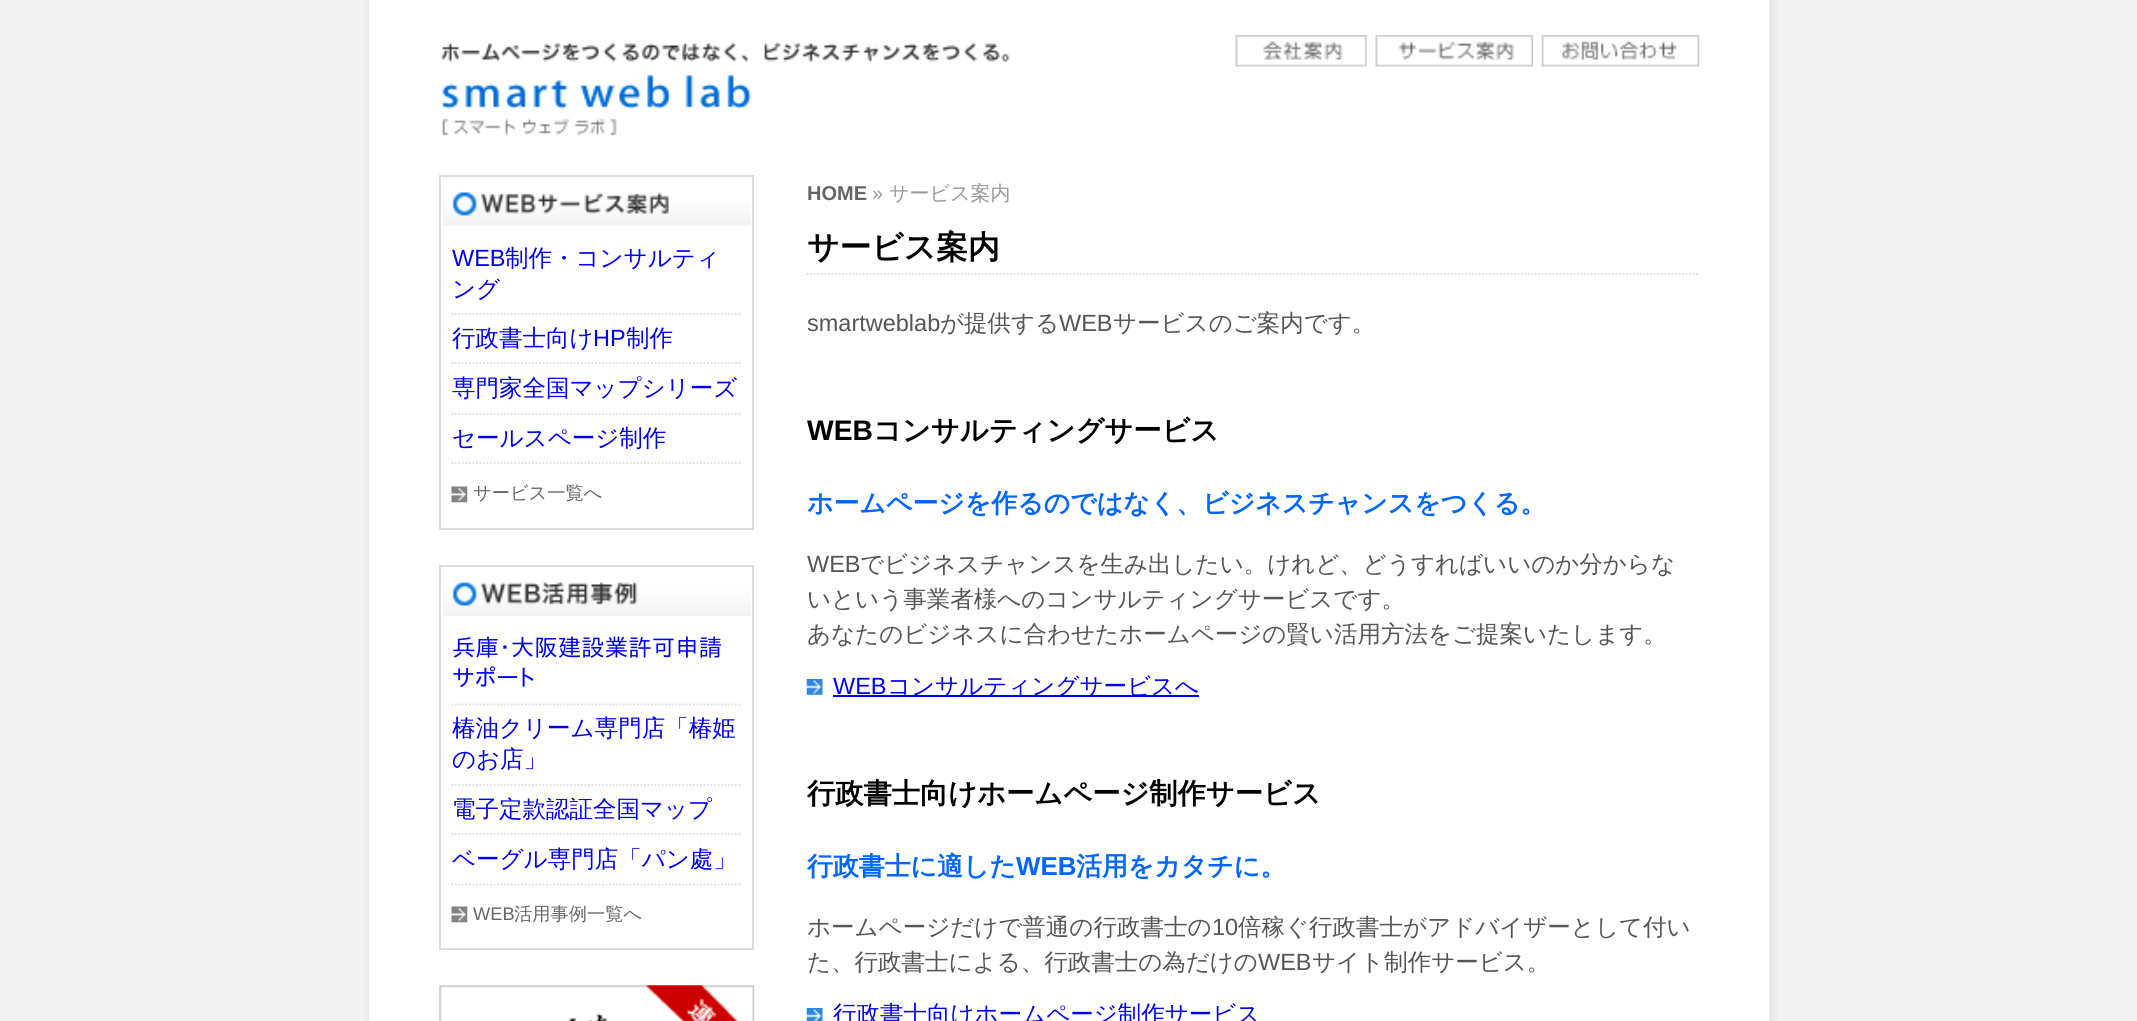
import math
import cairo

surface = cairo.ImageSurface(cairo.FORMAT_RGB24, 2137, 1021)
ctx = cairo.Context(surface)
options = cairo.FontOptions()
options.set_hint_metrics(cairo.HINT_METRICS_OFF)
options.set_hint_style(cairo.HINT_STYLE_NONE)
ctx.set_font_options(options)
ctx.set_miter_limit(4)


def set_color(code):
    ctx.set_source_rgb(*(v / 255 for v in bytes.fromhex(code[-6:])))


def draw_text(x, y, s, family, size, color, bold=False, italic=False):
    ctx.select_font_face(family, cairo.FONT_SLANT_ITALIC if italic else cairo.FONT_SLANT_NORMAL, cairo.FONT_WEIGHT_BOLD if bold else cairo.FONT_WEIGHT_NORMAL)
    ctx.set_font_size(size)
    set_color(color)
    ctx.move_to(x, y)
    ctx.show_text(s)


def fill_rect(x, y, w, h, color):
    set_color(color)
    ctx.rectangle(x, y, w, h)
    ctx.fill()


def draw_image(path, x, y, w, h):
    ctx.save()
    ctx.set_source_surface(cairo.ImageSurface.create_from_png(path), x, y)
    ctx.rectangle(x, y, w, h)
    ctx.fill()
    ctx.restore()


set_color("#f3f3f3")
ctx.paint()
draw_image("assets/img1.png", 364, 0, 1414, 1021)
fill_rect(369, 35, 1, 986, "#ffffff")
draw_image("assets/img2.png", 440, 41, 571, 21)
draw_image("assets/img3.png", 1235, 35, 132, 32)
draw_image("assets/img4.png", 1375, 35, 158, 32)
draw_image("assets/img5.png", 1541, 35, 159, 32)
draw_image("assets/img6.png", 442, 74, 310, 62)
ctx.rectangle(440, 176, 313, 353)
set_color("#dddddd")
ctx.stroke()
draw_image("assets/img7.png", 443, 192, 308, 34)
ctx.new_path()
ctx.move_to(451.5, 314)
ctx.line_to(742, 314)
ctx.set_line_width(1.8)
ctx.set_dash([1.75, 1.75])
ctx.stroke()
draw_text(452, 266, "WEB", "Liberation Sans", 23.5, "#0000ee")
draw_text(505, 266, "制作・コンサルティ", "WenQuanYi Zen Hei Medium", 23.5, "#0000ee")
draw_text(452, 297, "ング", "WenQuanYi Zen Hei Medium", 23.5, "#0000ee")
ctx.new_path()
ctx.move_to(451.5, 363)
ctx.line_to(742, 363)
set_color("#dddddd")
ctx.stroke()
draw_text(452, 346, "行政書士向け", "WenQuanYi Zen Hei Medium", 23.5, "#0000ee")
draw_text(593, 346, "HP", "Liberation Sans", 23.5, "#0000ee")
draw_text(626, 346, "制作", "WenQuanYi Zen Hei Medium", 23.5, "#0000ee")
ctx.new_path()
ctx.move_to(451.5, 414)
ctx.line_to(742, 414)
set_color("#dddddd")
ctx.stroke()
draw_text(452, 396, "専門家全国マップシリーズ", "WenQuanYi Zen Hei Medium", 23.5, "#0000ee")
ctx.new_path()
ctx.move_to(451.5, 463)
ctx.line_to(742, 463)
set_color("#dddddd")
ctx.stroke()
draw_text(452, 446, "セールスページ制作", "WenQuanYi Zen Hei Medium", 23.5, "#0000ee")
draw_image("assets/img8.png", 451, 486, 17, 17)
draw_text(473, 499, "サービス一覧へ", "WenQuanYi Zen Hei Medium", 18.25, "#666666")
ctx.rectangle(440, 566, 313, 383)
set_color("#dddddd")
ctx.set_line_width(2)
ctx.set_dash([])
ctx.stroke()
draw_image("assets/img9.png", 443, 582, 308, 34)
ctx.new_path()
ctx.move_to(451.5, 704.5)
ctx.line_to(742, 704.5)
ctx.set_line_width(1.8)
ctx.set_dash([1.75, 1.75])
ctx.stroke()
draw_text(452, 656, "兵庫･大阪建設業許可申請", "IPAPGothic", 23.5, "#0000ee")
draw_text(452, 686, "サポート", "IPAPGothic", 23.5, "#0000ee")
ctx.new_path()
ctx.move_to(451.5, 785)
ctx.line_to(742, 785)
set_color("#dddddd")
ctx.stroke()
draw_text(452, 736, "椿油クリーム専門店「椿姫", "WenQuanYi Zen Hei Medium", 23.5, "#0000ee")
draw_text(452, 767, "のお店」", "WenQuanYi Zen Hei Medium", 23.5, "#0000ee")
ctx.new_path()
ctx.move_to(451.5, 834)
ctx.line_to(742, 834)
set_color("#dddddd")
ctx.stroke()
draw_text(452, 817, "電子定款認証全国マップ", "WenQuanYi Zen Hei Medium", 23.5, "#0000ee")
ctx.new_path()
ctx.move_to(451.5, 884.5)
ctx.line_to(742, 884.5)
set_color("#dddddd")
ctx.stroke()
draw_text(452, 867, "ベーグル専門店「パン處」", "WenQuanYi Zen Hei Medium", 23.5, "#0000ee")
draw_image("assets/img8.png", 451, 906, 17, 17)
draw_text(473, 920, "WEB", "Liberation Sans", 18.25, "#666666")
draw_text(514, 920, "活用事例一覧へ", "WenQuanYi Zen Hei Medium", 18.25, "#666666")
draw_image("assets/img10.png", 439, 985, 316, 36)
draw_text(807, 200, "HOME", "Liberation Sans", 20, "#666666", bold=True)
draw_text(872, 200, "»", "Liberation Sans", 20, "#999999")
draw_text(889, 200, "サービス案内", "WenQuanYi Zen Hei Medium", 20, "#999999")
ctx.new_path()
ctx.move_to(807, 274)
ctx.line_to(1699, 274)
set_color("#dddddd")
ctx.stroke()
draw_text(807, 258, "サービス案内", "WenQuanYi Zen Hei", 31.75, "#000000", bold=True)
draw_text(807, 331, "smartweblab", "Liberation Sans", 23.5, "#555555")
draw_text(940, 331, "が提供する", "WenQuanYi Zen Hei Medium", 23.5, "#555555")
draw_text(1059, 331, "WEB", "Liberation Sans", 23.5, "#555555")
draw_text(1113, 331, "サービスのご案内です。", "WenQuanYi Zen Hei Medium", 23.5, "#555555")
draw_text(807, 440, "WEB", "Liberation Sans", 28.25, "#000000", bold=True)
draw_text(873, 440, "コンサルティングサービス", "WenQuanYi Zen Hei", 28.25, "#000000", bold=True)
draw_text(807, 512, "ホームページを作るのではなく、ビジネスチャンスをつくる。", "WenQuanYi Zen Hei", 25.9, "#0066ff", bold=True)
draw_text(807, 572, "WEB", "Liberation Sans", 23.5, "#555555")
draw_text(860, 572, "でビジネスチャンスを生み出したい。けれど、どうすればいいのか分からな", "WenQuanYi Zen Hei Medium", 23.5, "#555555")
draw_text(807, 607, "いという事業者様へのコンサルティングサービスです。", "WenQuanYi Zen Hei Medium", 23.5, "#555555")
draw_text(807, 642, "あなたのビジネスに合わせたホームページの賢い活用方法をご提案いたします。", "WenQuanYi Zen Hei Medium", 23.5, "#555555")
draw_image("assets/img11.png", 806, 679, 17, 16)
draw_text(833, 694, "WEB", "Liberation Sans", 23.5, "#0000ee")
fill_rect(833, 695, 366, 2, "#0000ee")
draw_text(887, 694, "コンサルティングサービスへ", "WenQuanYi Zen Hei Medium", 23.5, "#0000ee")
draw_text(807, 803, "行政書士向けホームページ制作サービス", "WenQuanYi Zen Hei", 28.25, "#000000", bold=True)
draw_text(807, 875, "行政書士に適した", "WenQuanYi Zen Hei", 25.9, "#0066ff", bold=True)
draw_text(1016, 875, "WEB", "Liberation Sans", 25.9, "#0066ff", bold=True)
draw_text(1076, 875, "活用をカタチに。", "WenQuanYi Zen Hei", 25.9, "#0066ff", bold=True)
draw_text(807, 935, "ホームページだけで普通の行政書士の", "WenQuanYi Zen Hei Medium", 23.5, "#555555")
draw_text(1212, 935, "10", "Liberation Sans", 23.5, "#555555")
draw_text(1238, 935, "倍稼ぐ行政書士がアドバイザーとして付い", "WenQuanYi Zen Hei Medium", 23.5, "#555555")
draw_text(807, 970, "た、行政書士による、行政書士の為だけの", "WenQuanYi Zen Hei Medium", 23.5, "#555555")
draw_text(1258, 970, "WEB", "Liberation Sans", 23.5, "#555555")
draw_text(1312, 970, "サイト制作サービス。", "WenQuanYi Zen Hei Medium", 23.5, "#555555")
draw_image("assets/img12.png", 806, 1008, 17, 13)
draw_text(833, 1022, "行政書士向けホームページ制作サービス", "WenQuanYi Zen Hei Medium", 23.5, "#0000ee")
surface.write_to_png("output.png")
